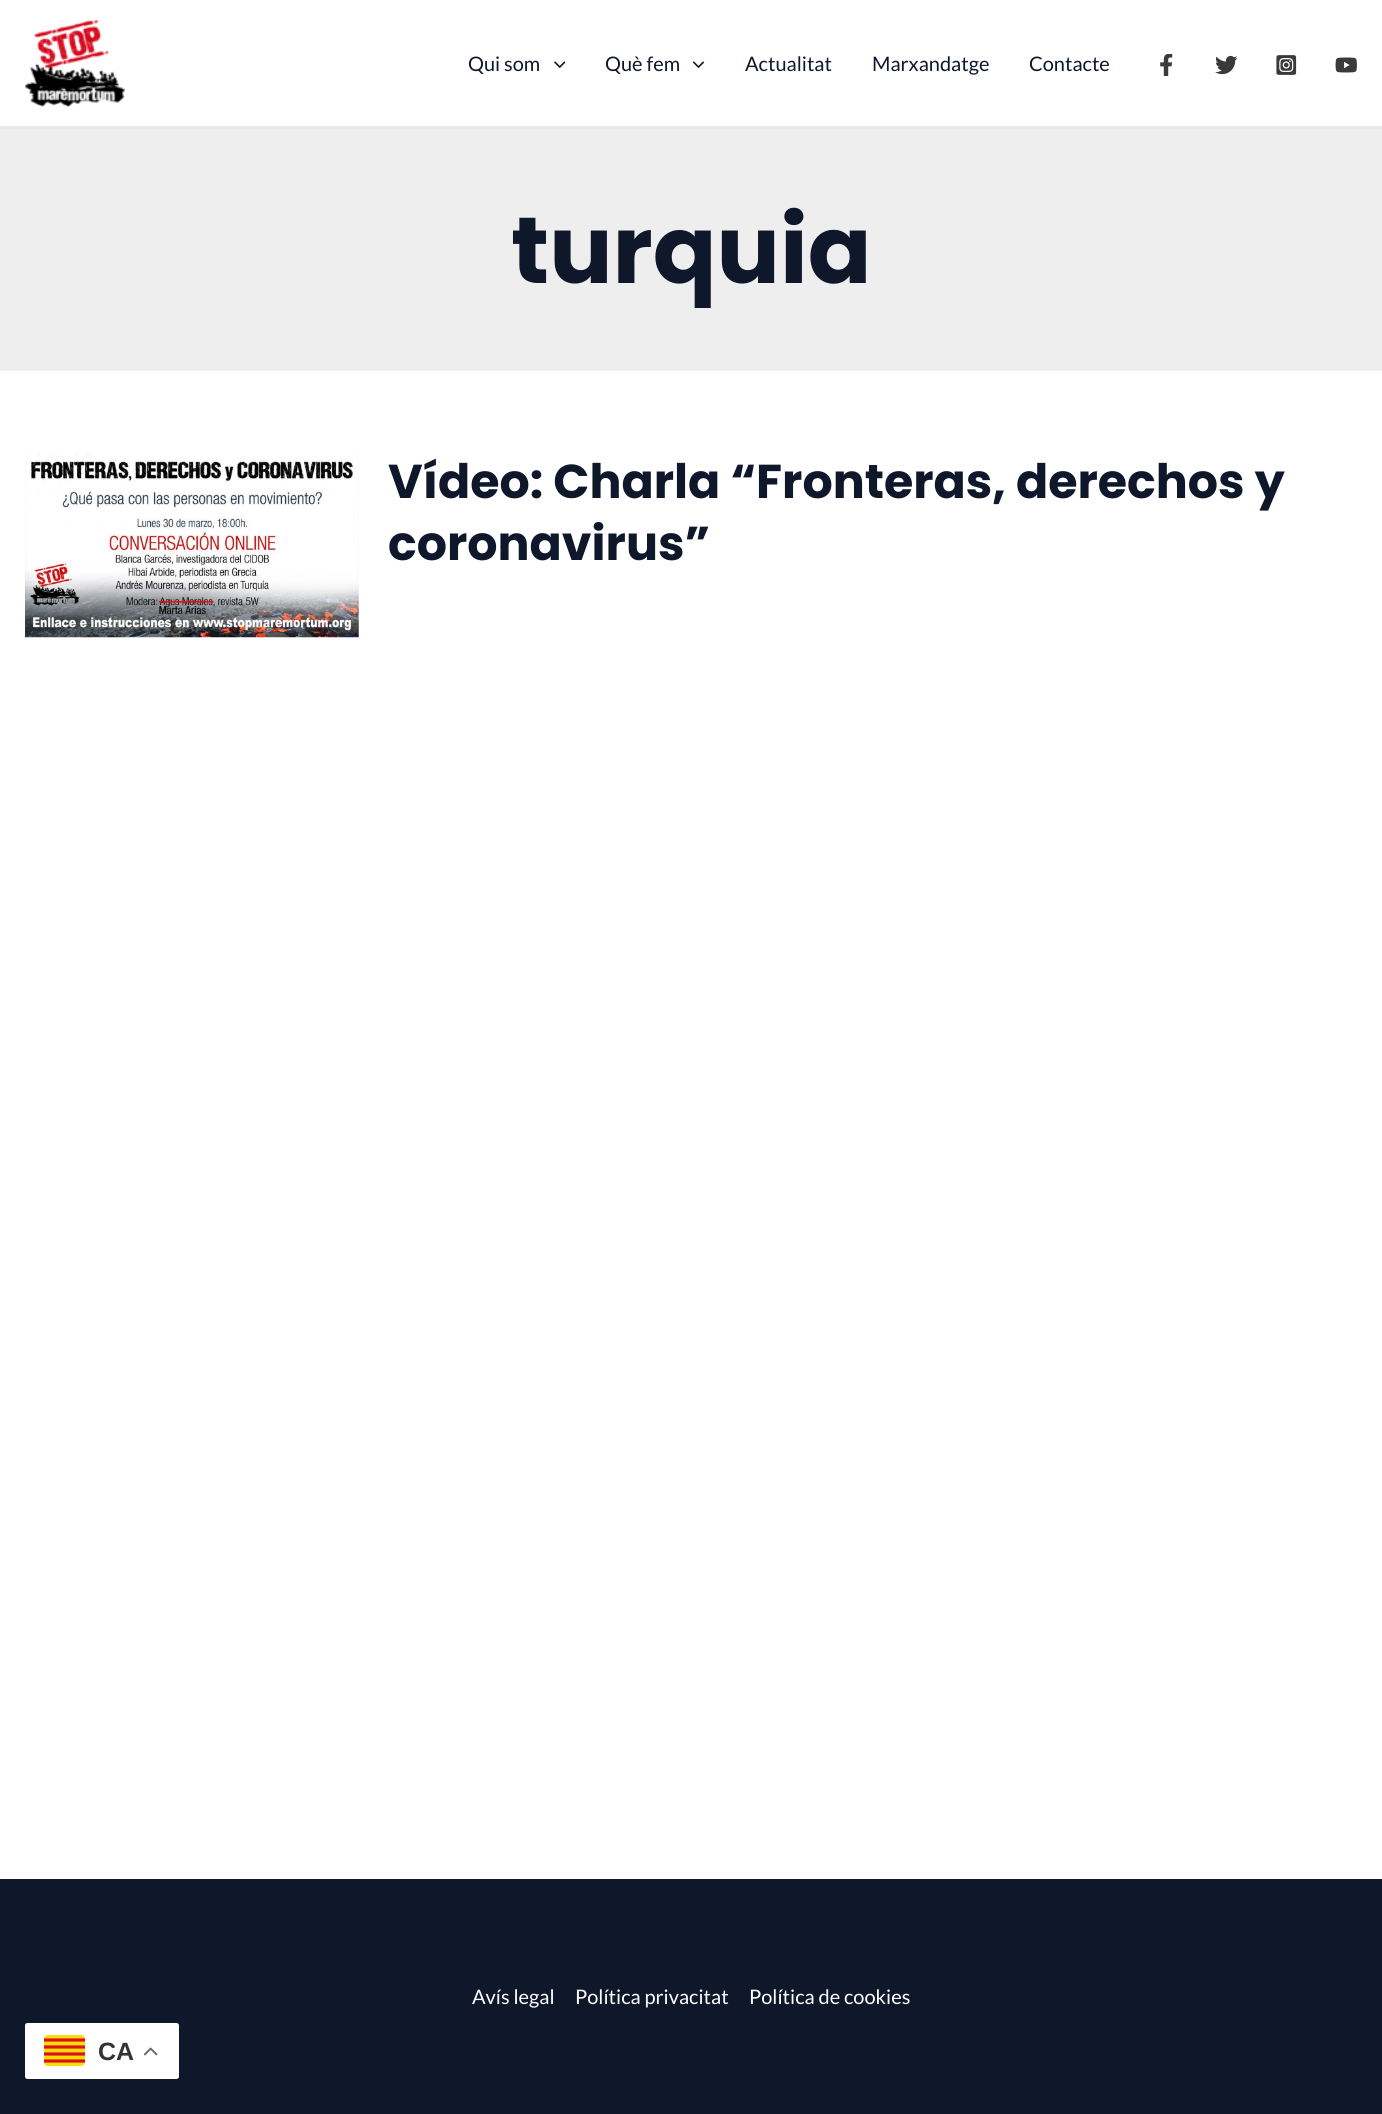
import math
import cairo

surface = cairo.ImageSurface(cairo.FORMAT_RGB24, 1382, 2114)
ctx = cairo.Context(surface)
options = cairo.FontOptions()
options.set_hint_metrics(cairo.HINT_METRICS_OFF)
options.set_hint_style(cairo.HINT_STYLE_NONE)
ctx.set_font_options(options)
ctx.set_miter_limit(4)


def set_color(code):
    ctx.set_source_rgb(*(v / 255 for v in bytes.fromhex(code[-6:])))


def draw_text(x, y, s, family, size, color, bold=False, italic=False):
    ctx.select_font_face(family, cairo.FONT_SLANT_ITALIC if italic else cairo.FONT_SLANT_NORMAL, cairo.FONT_WEIGHT_BOLD if bold else cairo.FONT_WEIGHT_NORMAL)
    ctx.set_font_size(size)
    set_color(color)
    ctx.move_to(x, y)
    ctx.show_text(s)


def fill_rect(x, y, w, h, color):
    set_color(color)
    ctx.rectangle(x, y, w, h)
    ctx.fill()


def rounded_rect(x, y, w, h, r):
    ctx.new_sub_path()
    for i, (u, v) in enumerate([(x + w - r, y + h - r), (x + r, y + h - r), (x + r, y + r), (x + w - r, y + r)]):
        ctx.arc(u, v, r, i * math.pi / 2, (i + 1) * math.pi / 2)
    ctx.close_path()


def draw_image(path, x, y, w, h):
    ctx.save()
    ctx.set_source_surface(cairo.ImageSurface.create_from_png(path), x, y)
    ctx.rectangle(x, y, w, h)
    ctx.fill()
    ctx.restore()


set_color("#ffffff")
ctx.paint()
fill_rect(0, 126, 1382, 3, "#eaeaea")
draw_image("assets/img1.png", 25, 20, 100, 87)
draw_text(468, 71, "Qui som", "Lato", 20, "#0f172a")
draw_image("assets/img2.png", 554, 61, 11, 8)
draw_text(605, 71, "Què fem", "Lato", 20, "#0f172a")
draw_image("assets/img3.png", 693, 61, 12, 8)
draw_text(745, 71, "Actualitat", "Lato", 20, "#0f172a")
draw_text(872, 71, "Marxandatge", "Lato", 20, "#0f172a")
draw_text(1029, 71, "Contacte", "Lato", 20, "#0f172a")
draw_image("assets/img4.png", 1160, 54, 13, 22)
draw_image("assets/img5.png", 1215, 55, 23, 20)
draw_image("assets/img6.png", 1276, 55, 21, 20)
draw_image("assets/img7.png", 1335, 57, 22, 16)
fill_rect(0, 129, 1382, 242, "#eeeeee")
draw_text(511, 283, "turquia", "Poppins", 94, "#0f172a", bold=True)
draw_image("assets/img8.png", 25, 452, 334, 186)
draw_text(388, 498, "Vídeo: Charla “Fronteras, derechos y", "Poppins", 47.5, "#0f172a", bold=True)
draw_text(388, 560, "coronavirus”", "Poppins", 47.5, "#0f172a", bold=True)
fill_rect(0, 1879, 1382, 235, "#0f172a")
draw_text(472, 2004, "Avís legal", "Lato", 20, "#ffffff")
draw_text(575, 2004, "Política privacitat", "Lato", 20, "#ffffff")
draw_text(749, 2004, "Política de cookies", "Lato", 20, "#ffffff")
rounded_rect(25, 2023, 154, 56, 2.5)
ctx.fill()
set_color("#fcdd09")
rounded_rect(44, 2035, 41, 31, 4)
ctx.fill()
ctx.new_path()
ctx.move_to(44, 2040)
ctx.line_to(85, 2040)
ctx.move_to(85, 2047)
ctx.line_to(44, 2047)
ctx.move_to(44, 2054)
ctx.line_to(85, 2054)
ctx.move_to(85, 2061)
ctx.line_to(44, 2061)
set_color("#da121a")
ctx.set_line_width(3.2)
ctx.stroke()
draw_text(98, 2060, "CA", "Liberation Sans", 25, "#333333", bold=True)
draw_image("assets/img9.png", 144, 2047, 14, 9)
surface.write_to_png("output.png")
